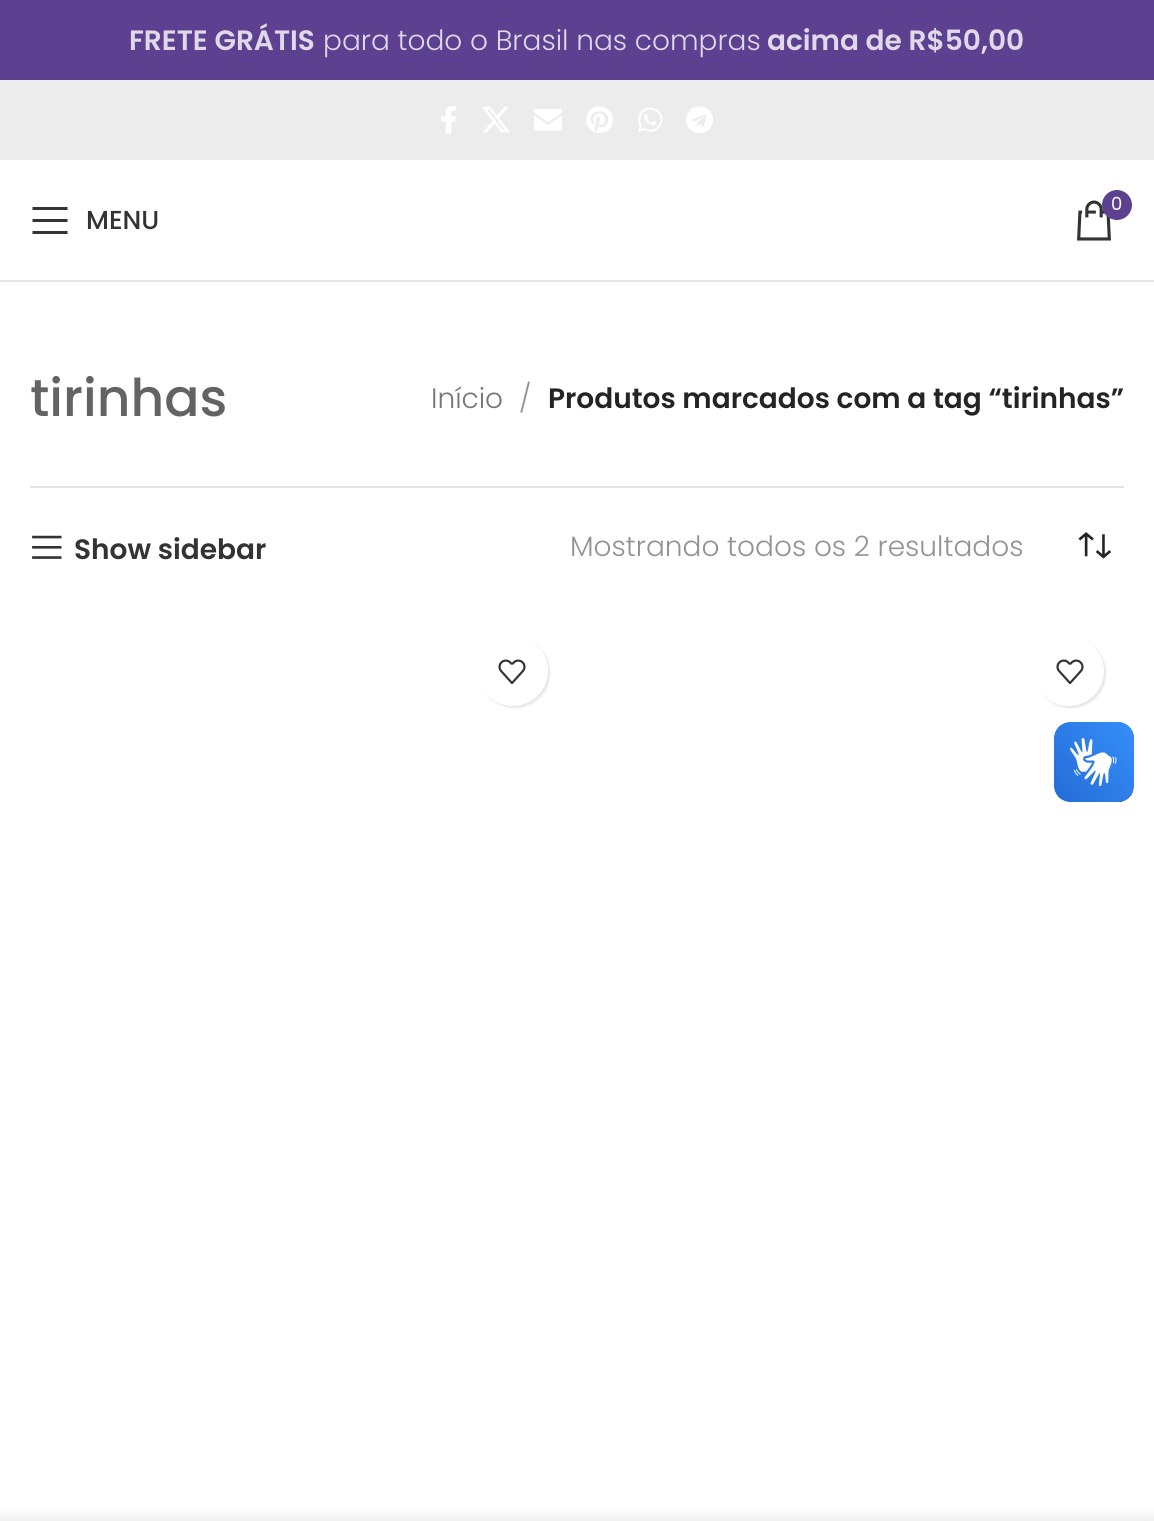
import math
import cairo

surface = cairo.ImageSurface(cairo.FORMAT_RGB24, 1154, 1521)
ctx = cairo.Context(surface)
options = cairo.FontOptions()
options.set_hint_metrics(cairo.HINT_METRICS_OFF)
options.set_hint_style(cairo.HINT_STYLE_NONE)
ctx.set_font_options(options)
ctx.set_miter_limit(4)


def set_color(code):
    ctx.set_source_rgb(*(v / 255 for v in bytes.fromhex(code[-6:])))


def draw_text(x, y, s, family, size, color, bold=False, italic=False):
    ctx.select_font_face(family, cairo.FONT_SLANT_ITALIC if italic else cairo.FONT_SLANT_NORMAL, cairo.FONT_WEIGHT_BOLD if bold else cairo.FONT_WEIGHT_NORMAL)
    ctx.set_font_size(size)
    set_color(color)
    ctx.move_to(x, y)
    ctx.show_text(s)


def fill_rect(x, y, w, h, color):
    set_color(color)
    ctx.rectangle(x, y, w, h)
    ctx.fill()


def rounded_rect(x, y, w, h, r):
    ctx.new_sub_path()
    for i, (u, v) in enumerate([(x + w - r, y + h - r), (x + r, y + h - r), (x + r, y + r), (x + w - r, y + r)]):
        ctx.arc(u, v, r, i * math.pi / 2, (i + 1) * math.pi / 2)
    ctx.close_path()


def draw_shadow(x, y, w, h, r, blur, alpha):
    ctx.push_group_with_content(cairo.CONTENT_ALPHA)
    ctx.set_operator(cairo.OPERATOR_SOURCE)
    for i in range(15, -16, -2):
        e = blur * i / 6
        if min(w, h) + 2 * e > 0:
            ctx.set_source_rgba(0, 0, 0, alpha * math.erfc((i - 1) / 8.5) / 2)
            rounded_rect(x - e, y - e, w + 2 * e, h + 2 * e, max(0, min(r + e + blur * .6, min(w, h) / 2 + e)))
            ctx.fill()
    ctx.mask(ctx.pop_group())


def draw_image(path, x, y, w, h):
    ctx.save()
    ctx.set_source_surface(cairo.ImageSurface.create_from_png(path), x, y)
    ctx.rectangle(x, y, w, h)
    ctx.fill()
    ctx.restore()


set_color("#ffffff")
ctx.paint()
fill_rect(0, 0, 1154, 80, "#5e4091")
draw_text(129, 50, "FRETE GRÁTIS", "Poppins SemiBold", 28, "#dfd9e9")
draw_text(323, 50, "para todo o Brasil nas compras", "Poppins Light", 28, "#dfd9e9")
draw_text(767, 50, "acima de R$50,00", "Poppins SemiBold", 28, "#dfd9e9")
fill_rect(0, 80, 1154, 80, "#ececec")
draw_image("assets/img1.png", 441, 105, 16, 29)
draw_image("assets/img2.png", 482, 107, 28, 26)
draw_image("assets/img3.png", 534, 109, 28, 22)
draw_image("assets/img4.png", 586, 106, 27, 28)
draw_image("assets/img5.png", 638, 107, 25, 25)
draw_image("assets/img6.png", 686, 106, 27, 28)
fill_rect(0, 280, 1154, 2, "#e6e6e6")
draw_image("assets/img7.png", 1077, 200, 34, 41)
set_color("#5e4091")
ctx.arc(1117, 205, 15, 0, 2 * math.pi)
ctx.fill()
draw_text(1111, 210, "0", "Poppins", 18, "#ffffff")
set_color("#333333")
ctx.new_path()
ctx.move_to(32.5, 210)
ctx.line_to(67.5, 210)
ctx.line_to(67.5, 207)
ctx.line_to(32.5, 207)
ctx.close_path()
ctx.move_to(32.5, 222)
ctx.line_to(67.5, 222)
ctx.line_to(67.5, 219)
ctx.line_to(32.5, 219)
ctx.close_path()
ctx.move_to(32.5, 234)
ctx.line_to(67.5, 234)
ctx.line_to(67.5, 231)
ctx.line_to(32.5, 231)
ctx.close_path()
ctx.fill()
draw_text(86, 229, "MENU", "Poppins Medium", 26, "#333333")
draw_text(30, 416, "tirinhas", "Poppins Medium", 52, "#636363")
draw_text(431, 408, "Início", "Poppins Light", 28, "#767676")
draw_text(519, 408, "/", "Poppins Light", 28, "#939393")
draw_text(548, 408, "Produtos marcados com a tag “tirinhas”", "Poppins SemiBold", 28, "#242424")
fill_rect(30, 486, 1094, 2, "#e4e4e4")
draw_image("assets/img8.png", 32, 535, 30, 24)
draw_text(74, 559, "Show sidebar", "Poppins SemiBold", 28, "#333333")
draw_text(570, 556, "Mostrando todos os 2 resultados", "Poppins Light", 28, "#939393")
draw_image("assets/img9.png", 1078, 532, 33, 27)
set_color("#000000")
draw_shadow(480, 638, 70, 70, 35, 1, 0.1)
set_color("#ffffff")
ctx.arc(513, 671, 35, 0, 2 * math.pi)
ctx.fill()
draw_image("assets/img10.png", 498, 659, 28, 25)
set_color("#000000")
draw_shadow(1036, 638, 70, 70, 35, 1, 0.1)
set_color("#ffffff")
ctx.arc(1069, 671, 35, 0, 2 * math.pi)
ctx.fill()
draw_image("assets/img10.png", 1056, 659, 28, 25)
draw_image("assets/img11.png", 1054, 722, 80, 80)
draw_image("assets/img12.png", 1054, 722, 80, 80)
set_color("#000000")
draw_shadow(0, 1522, 1154, 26, 0, 9, 0.14)
surface.write_to_png("output.png")
